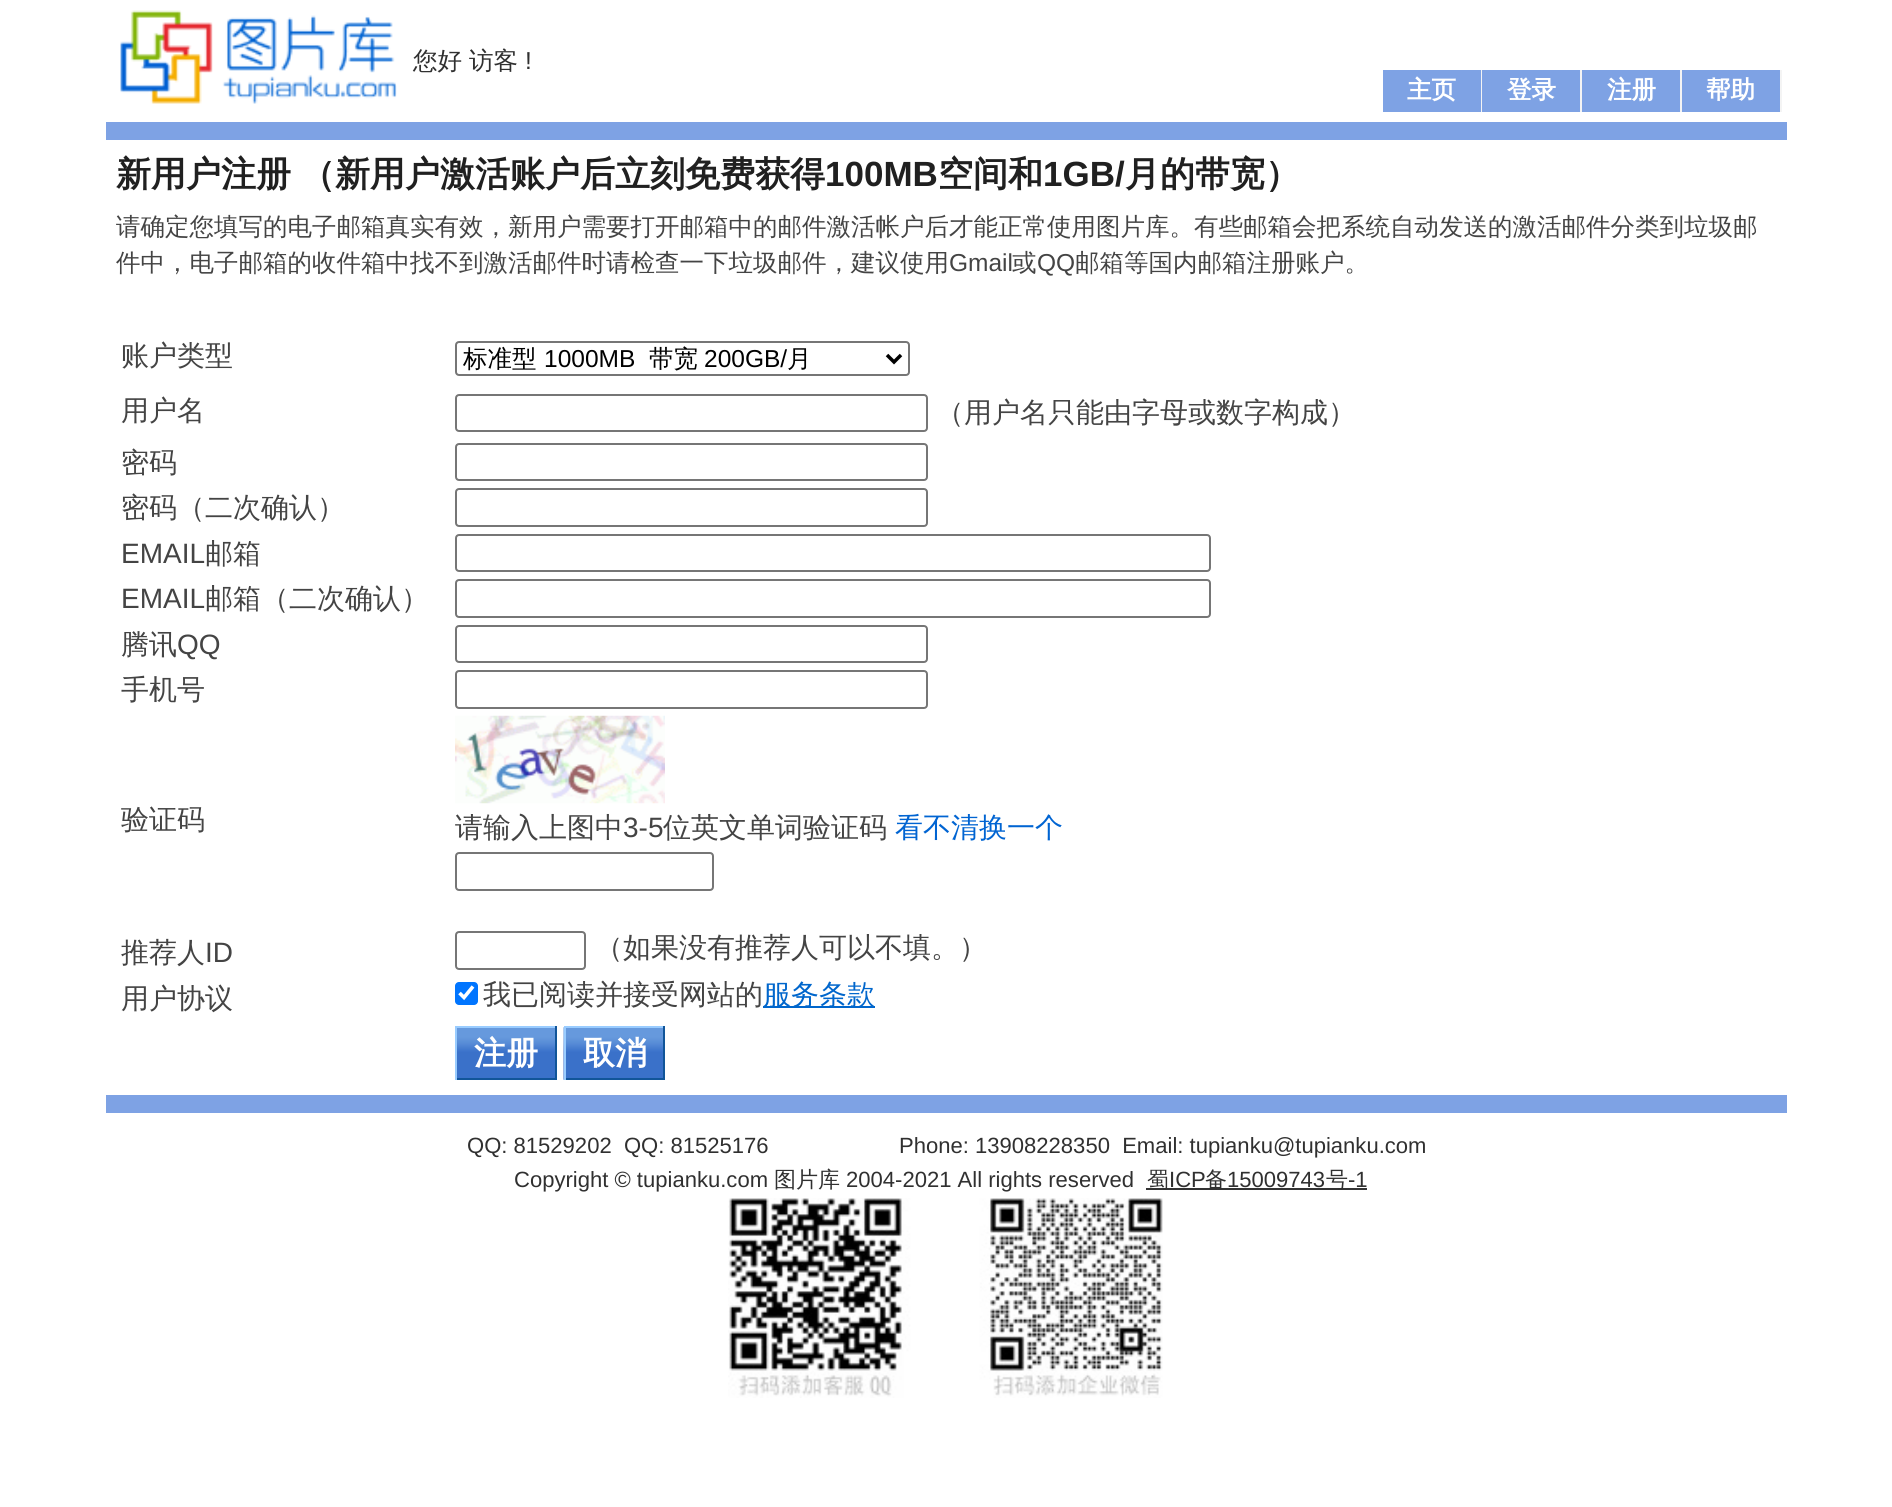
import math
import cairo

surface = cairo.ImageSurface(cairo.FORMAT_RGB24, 1892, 1507)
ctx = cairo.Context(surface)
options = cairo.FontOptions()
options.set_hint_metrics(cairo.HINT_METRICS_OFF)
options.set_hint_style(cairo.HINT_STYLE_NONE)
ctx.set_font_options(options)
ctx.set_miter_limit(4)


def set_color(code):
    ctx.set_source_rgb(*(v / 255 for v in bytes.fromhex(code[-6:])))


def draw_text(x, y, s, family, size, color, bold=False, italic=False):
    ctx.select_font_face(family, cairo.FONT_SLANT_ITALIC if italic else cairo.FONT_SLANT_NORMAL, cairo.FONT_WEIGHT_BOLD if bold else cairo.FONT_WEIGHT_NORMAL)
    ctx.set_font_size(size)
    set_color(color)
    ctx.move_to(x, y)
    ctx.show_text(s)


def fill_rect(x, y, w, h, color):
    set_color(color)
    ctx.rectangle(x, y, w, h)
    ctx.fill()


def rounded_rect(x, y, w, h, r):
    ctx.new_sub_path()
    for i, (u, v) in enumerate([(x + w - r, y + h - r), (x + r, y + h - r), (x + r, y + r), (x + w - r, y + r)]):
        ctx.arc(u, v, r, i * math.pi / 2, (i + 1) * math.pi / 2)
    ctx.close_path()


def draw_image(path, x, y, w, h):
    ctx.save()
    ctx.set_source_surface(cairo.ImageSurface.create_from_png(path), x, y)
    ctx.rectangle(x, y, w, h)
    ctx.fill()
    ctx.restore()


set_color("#ffffff")
ctx.paint()
draw_image("assets/img1.png", 120, 10, 277, 94)
draw_text(413, 69, "您好", "WenQuanYi Zen Hei Medium", 24.5, "#303030")
draw_text(469, 69, "访客", "WenQuanYi Zen Hei Medium", 24.5, "#303030")
draw_text(525, 69, "!", "Liberation Sans", 24.5, "#303030")
fill_rect(1481, 70, 301, 42, "#f4f4f4")
fill_rect(1383, 70, 98, 42, "#7ea2e4")
draw_text(1407, 98, "主页", "WenQuanYi Zen Hei", 24.5, "#ffffff", bold=True)
fill_rect(1482, 70, 98, 42, "#7ea2e4")
draw_text(1507, 98, "登录", "WenQuanYi Zen Hei", 24.5, "#ffffff", bold=True)
fill_rect(1582, 70, 98, 42, "#7ea2e4")
draw_text(1607, 98, "注册", "WenQuanYi Zen Hei", 24.5, "#ffffff", bold=True)
fill_rect(1682, 70, 98, 42, "#7ea2e4")
draw_text(1706, 98, "帮助", "WenQuanYi Zen Hei", 24.5, "#ffffff", bold=True)
fill_rect(106, 122, 1681, 18, "#7ea2e4")
draw_text(116, 186, "新用户注册", "WenQuanYi Zen Hei", 35, "#202020", bold=True)
draw_text(300, 186, "（新用户激活账户后立刻免费获得", "WenQuanYi Zen Hei", 35, "#202020", bold=True)
draw_text(825, 186, "100MB", "Liberation Sans", 35, "#202020", bold=True)
draw_text(938, 186, "空间和", "WenQuanYi Zen Hei", 35, "#202020", bold=True)
draw_text(1043, 186, "1GB/", "Liberation Sans", 35, "#202020", bold=True)
draw_text(1125, 186, "月的带宽）", "WenQuanYi Zen Hei", 35, "#202020", bold=True)
draw_text(116, 235, "请确定您填写的电子邮箱真实有效，新用户需要打开邮箱中的邮件激活帐户后才能正常使用图片库。有些邮箱会把系统自动发送的激活邮件分类到垃圾邮", "WenQuanYi Zen Hei Medium", 24.5, "#444444")
draw_text(116, 271, "件中，电子邮箱的收件箱中找不到激活邮件时请检查一下垃圾邮件，建议使用", "WenQuanYi Zen Hei Medium", 24.5, "#444444")
draw_text(949, 271, "Gmail", "Liberation Sans", 24.5, "#444444")
draw_text(1012, 271, "或", "WenQuanYi Zen Hei Medium", 24.5, "#444444")
draw_text(1037, 271, "QQ", "Liberation Sans", 24.5, "#444444")
draw_text(1075, 271, "邮箱等国内邮箱注册账户。", "WenQuanYi Zen Hei Medium", 24.5, "#444444")
draw_text(121, 365, "账户类型", "WenQuanYi Zen Hei Medium", 28, "#444444")
rounded_rect(456, 342, 453, 33, 3)
set_color("#767676")
ctx.stroke()
ctx.new_path()
ctx.move_to(887, 355)
ctx.line_to(894, 362)
ctx.line_to(901, 355)
set_color("#000000")
ctx.set_line_width(3.5)
ctx.stroke()
draw_text(463, 367, "标准型", "WenQuanYi Zen Hei Medium", 24.5, "#000000")
draw_text(544, 367, "1000MB", "Liberation Sans", 24.5, "#000000")
draw_text(649, 367, "带宽", "WenQuanYi Zen Hei Medium", 24.5, "#000000")
draw_text(704, 367, "200GB/", "Liberation Sans", 24.5, "#000000")
draw_text(787, 367, "月", "WenQuanYi Zen Hei Medium", 24.5, "#000000")
draw_text(121, 420, "用户名", "WenQuanYi Zen Hei Medium", 28, "#444444")
rounded_rect(456, 395, 471, 36, 3)
set_color("#767676")
ctx.set_line_width(2)
ctx.stroke()
draw_text(936, 422, "（用户名只能由字母或数字构成）", "WenQuanYi Zen Hei Medium", 28, "#444444")
draw_text(121, 472, "密码", "WenQuanYi Zen Hei Medium", 28, "#444444")
rounded_rect(456, 444, 471, 36, 3)
set_color("#767676")
ctx.stroke()
draw_text(121, 517, "密码（二次确认）", "WenQuanYi Zen Hei Medium", 28, "#444444")
rounded_rect(456, 489, 471, 37, 3)
set_color("#767676")
ctx.stroke()
draw_text(121, 563, "EMAIL", "Liberation Sans", 28, "#444444")
draw_text(205, 563, "邮箱", "WenQuanYi Zen Hei Medium", 28, "#444444")
rounded_rect(456, 535, 754, 36, 3)
set_color("#767676")
ctx.stroke()
draw_text(121, 608, "EMAIL", "Liberation Sans", 28, "#444444")
draw_text(205, 608, "邮箱（二次确认）", "WenQuanYi Zen Hei Medium", 28, "#444444")
rounded_rect(456, 580, 754, 37, 3)
set_color("#767676")
ctx.stroke()
draw_text(121, 654, "腾讯", "WenQuanYi Zen Hei Medium", 28, "#444444")
draw_text(177, 654, "QQ", "Liberation Sans", 28, "#444444")
rounded_rect(456, 626, 471, 36, 3)
set_color("#767676")
ctx.stroke()
draw_text(121, 699, "手机号", "WenQuanYi Zen Hei Medium", 28, "#444444")
rounded_rect(456, 671, 471, 37, 3)
set_color("#767676")
ctx.stroke()
draw_text(121, 829, "验证码", "WenQuanYi Zen Hei Medium", 28, "#444444")
draw_image("assets/img2.png", 455, 715, 210, 89)
draw_text(455, 837, "请输入上图中", "WenQuanYi Zen Hei Medium", 28, "#444444")
draw_text(623, 837, "3-5", "Liberation Sans", 28, "#444444")
draw_text(663, 837, "位英文单词验证码", "WenQuanYi Zen Hei Medium", 28, "#444444")
draw_text(895, 837, "看不清换一个", "WenQuanYi Zen Hei Medium", 28, "#0064d2")
rounded_rect(456, 853, 257, 37, 3)
set_color("#767676")
ctx.stroke()
draw_text(121, 962, "推荐人", "WenQuanYi Zen Hei Medium", 28, "#444444")
draw_text(205, 962, "ID", "Liberation Sans", 28, "#444444")
rounded_rect(456, 932, 129, 37, 3)
set_color("#767676")
ctx.stroke()
draw_text(595, 957, "（如果没有推荐人可以不填。）", "WenQuanYi Zen Hei Medium", 28, "#444444")
draw_text(121, 1008, "用户协议", "WenQuanYi Zen Hei Medium", 28, "#444444")
set_color("#0075ff")
rounded_rect(455, 982, 23, 23, 4)
ctx.fill()
ctx.new_path()
ctx.move_to(459.5, 993)
ctx.line_to(464, 997.5)
ctx.line_to(473, 986.5)
set_color("#ffffff")
ctx.set_line_width(3.6)
ctx.stroke()
draw_text(483, 1004, "我已阅读并接受网站的", "WenQuanYi Zen Hei Medium", 28, "#444444")
fill_rect(763, 1006, 112, 2, "#0066cc")
draw_text(763, 1004, "服务条款", "WenQuanYi Zen Hei Medium", 28, "#0066cc")
draw_image("assets/img3.png", 457, 1028, 98, 50)
fill_rect(455, 1026, 102, 2, "#99ccff")
fill_rect(555, 1026, 2, 54, "#115599")
fill_rect(455, 1078, 102, 2, "#115599")
fill_rect(455, 1026, 2, 54, "#99ccff")
draw_text(474, 1064, "注册", "WenQuanYi Zen Hei", 32, "#ffffff", bold=True)
draw_image("assets/img4.png", 563, 1027, 100, 53)
fill_rect(564, 1026, 101, 2, "#99ccff")
fill_rect(663, 1026, 2, 54, "#115599")
fill_rect(564, 1078, 101, 2, "#115599")
fill_rect(564, 1026, 2, 54, "#99ccff")
draw_text(583, 1064, "取消", "WenQuanYi Zen Hei", 32, "#ffffff", bold=True)
fill_rect(106, 1095, 1681, 18, "#7ea2e4")
draw_text(467, 1153, "QQ: 81529202  QQ: 81525176", "Liberation Sans", 22.05, "#303030")
draw_text(899, 1153, "Phone: 13908228350  Email: tupianku@tupianku.com", "Liberation Sans", 22.05, "#303030")
draw_text(514, 1187, "Copyright © tupianku.com", "Liberation Sans", 22.05, "#303030")
draw_text(774, 1187, "图片库", "WenQuanYi Zen Hei Medium", 22.05, "#303030")
draw_text(846, 1187, "2004-2021 All rights reserved", "Liberation Sans", 22.05, "#303030")
fill_rect(1146, 1188, 221, 2, "#333333")
draw_text(1147, 1187, "蜀", "WenQuanYi Zen Hei Medium", 22.05, "#303030")
draw_text(1169, 1187, "ICP", "Liberation Sans", 22.05, "#303030")
draw_text(1205, 1187, "备", "WenQuanYi Zen Hei Medium", 22.05, "#303030")
draw_text(1227, 1187, "15009743", "Liberation Sans", 22.05, "#303030")
draw_text(1326, 1187, "号", "WenQuanYi Zen Hei Medium", 22.05, "#303030")
draw_text(1348, 1187, "-1", "Liberation Sans", 22.05, "#303030")
draw_image("assets/img5.png", 728, 1198, 435, 200)
surface.write_to_png("output.png")
